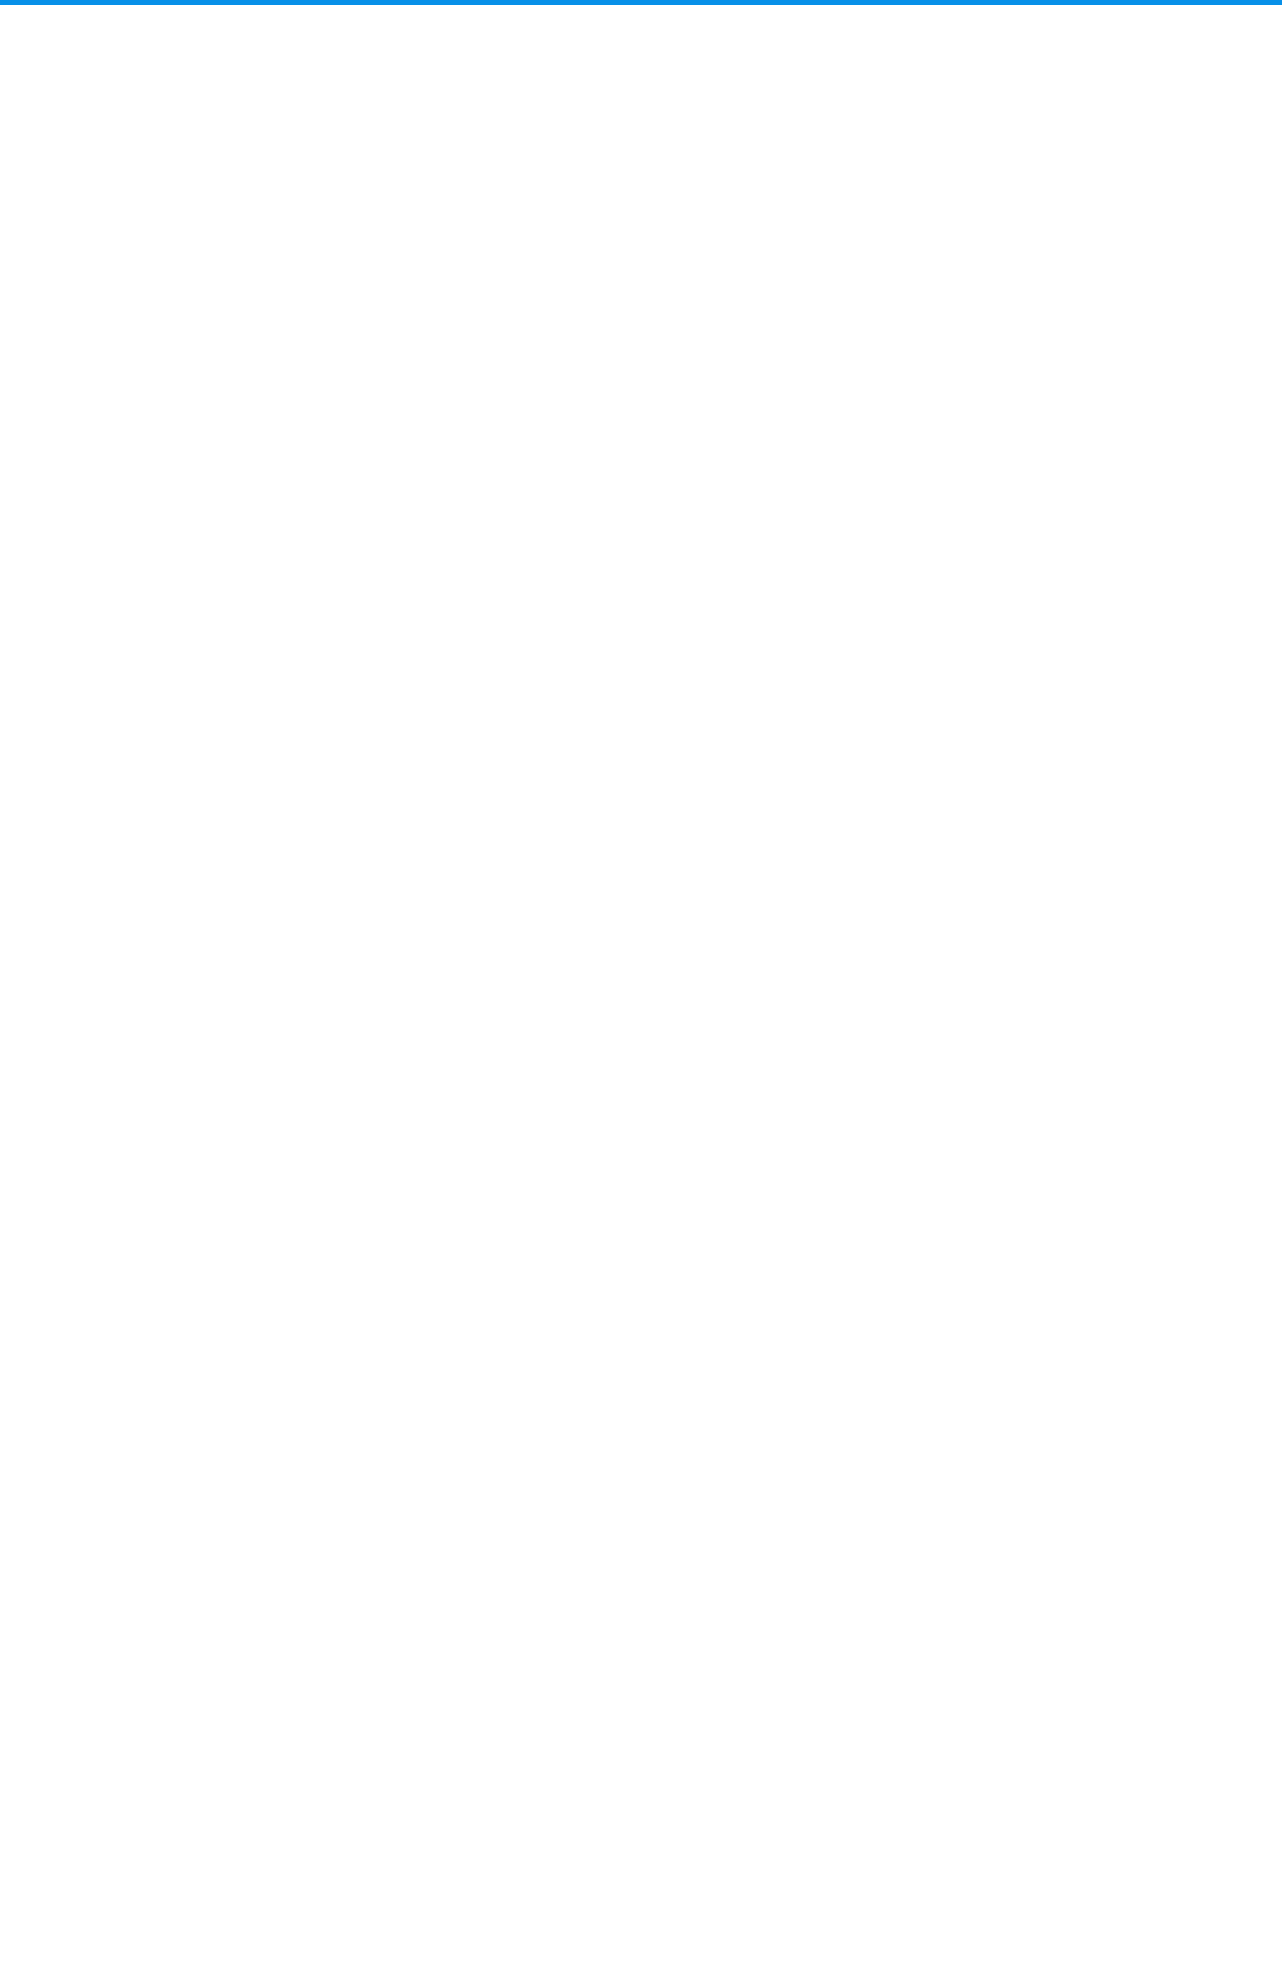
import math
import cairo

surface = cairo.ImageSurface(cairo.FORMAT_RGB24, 1282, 1988)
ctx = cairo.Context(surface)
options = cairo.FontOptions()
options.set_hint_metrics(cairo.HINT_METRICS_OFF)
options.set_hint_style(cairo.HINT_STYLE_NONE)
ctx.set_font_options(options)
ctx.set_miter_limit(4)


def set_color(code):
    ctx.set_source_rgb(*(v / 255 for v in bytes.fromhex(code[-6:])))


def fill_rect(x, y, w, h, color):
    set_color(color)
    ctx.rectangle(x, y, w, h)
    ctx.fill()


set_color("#ffffff")
ctx.paint()
fill_rect(0, 0, 1282, 5, "#0790e8")
surface.write_to_png("output.png")
